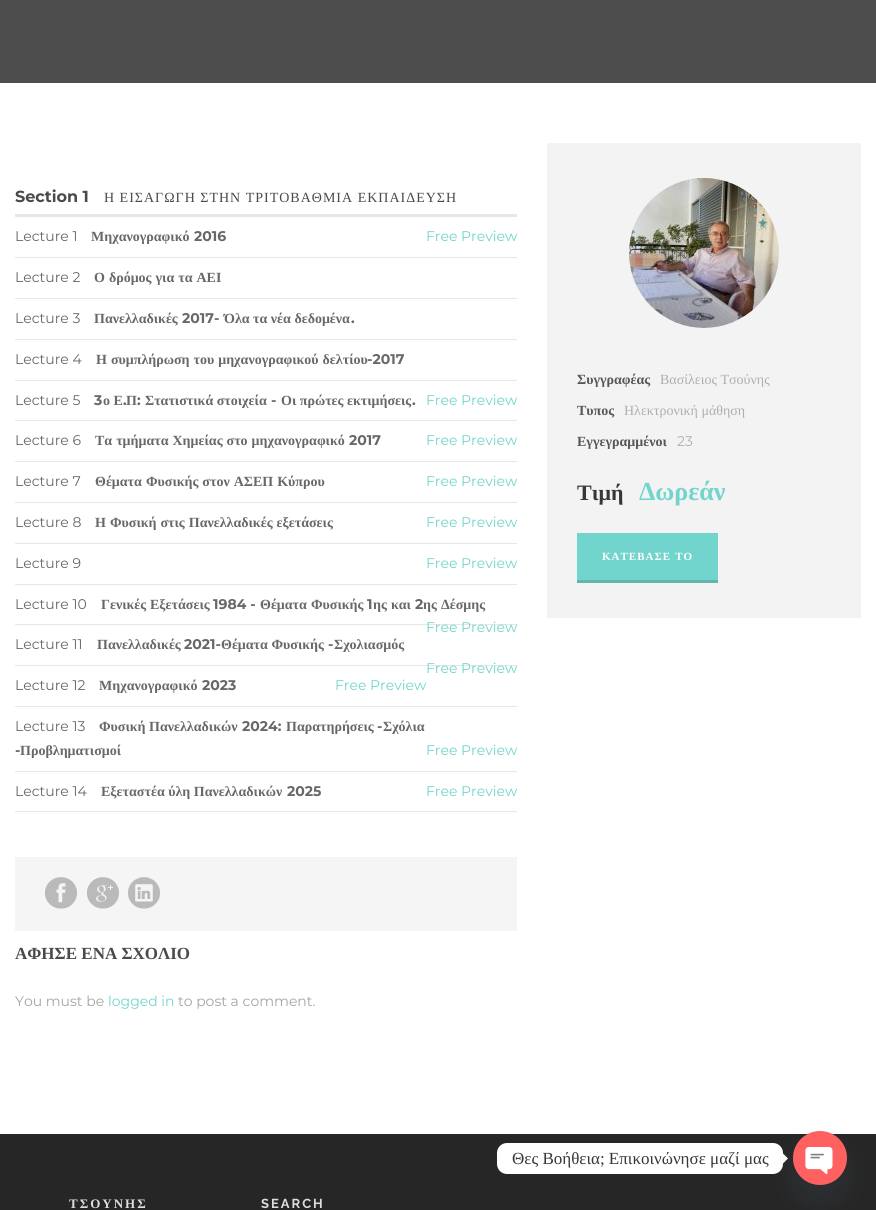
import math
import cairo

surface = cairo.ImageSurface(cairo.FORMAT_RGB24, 876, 1210)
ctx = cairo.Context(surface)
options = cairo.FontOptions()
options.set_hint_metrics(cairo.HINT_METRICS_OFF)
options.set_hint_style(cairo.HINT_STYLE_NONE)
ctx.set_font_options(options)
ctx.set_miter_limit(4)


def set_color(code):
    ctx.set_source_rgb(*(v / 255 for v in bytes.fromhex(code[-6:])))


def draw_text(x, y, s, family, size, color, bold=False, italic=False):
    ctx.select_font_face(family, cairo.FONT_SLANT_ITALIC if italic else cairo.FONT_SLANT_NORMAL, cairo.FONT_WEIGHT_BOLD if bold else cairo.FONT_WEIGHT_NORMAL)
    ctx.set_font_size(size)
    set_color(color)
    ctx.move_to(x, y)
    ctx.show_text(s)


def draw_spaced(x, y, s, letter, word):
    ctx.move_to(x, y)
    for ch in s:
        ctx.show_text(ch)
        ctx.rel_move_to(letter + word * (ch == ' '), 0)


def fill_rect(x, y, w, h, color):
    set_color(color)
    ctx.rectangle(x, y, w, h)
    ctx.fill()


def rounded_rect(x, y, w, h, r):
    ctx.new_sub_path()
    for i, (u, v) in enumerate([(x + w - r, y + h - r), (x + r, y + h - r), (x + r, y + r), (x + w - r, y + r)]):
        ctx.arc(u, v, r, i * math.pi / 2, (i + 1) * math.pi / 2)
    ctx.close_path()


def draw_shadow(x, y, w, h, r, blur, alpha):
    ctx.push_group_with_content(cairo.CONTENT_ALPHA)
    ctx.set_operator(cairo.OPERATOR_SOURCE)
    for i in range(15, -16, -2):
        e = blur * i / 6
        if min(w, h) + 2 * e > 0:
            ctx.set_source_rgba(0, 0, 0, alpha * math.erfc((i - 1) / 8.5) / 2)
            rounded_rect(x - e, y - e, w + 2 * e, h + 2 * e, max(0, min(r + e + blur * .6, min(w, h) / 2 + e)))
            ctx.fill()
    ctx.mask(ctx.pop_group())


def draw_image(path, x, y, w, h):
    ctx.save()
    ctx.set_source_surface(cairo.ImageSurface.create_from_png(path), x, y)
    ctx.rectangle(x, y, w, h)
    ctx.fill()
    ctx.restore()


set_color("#ffffff")
ctx.paint()
fill_rect(0, 0, 876, 83, "#4d4d4d")
fill_rect(15, 214, 502, 3, "#e7e7e7")
draw_text(15, 202, "Section 1", "Montserrat", 16, "#4a4a4a", bold=True)
ctx.select_font_face("Liberation Serif")
ctx.set_font_size(14)
draw_spaced(104, 202, "Η ΕΙΣΑΓΩΓΗ ΣΤΗΝ ΤΡΙΤΟΒΑΘΜΙΑ ΕΚΠΑΙΔΕΥΣΗ", 1, 0)
fill_rect(15, 257, 502, 1, "#e7e7e7")
draw_text(15, 241, "Lecture 1", "Montserrat", 14, "#686868")
draw_text(91, 241, "Μηχανογραφικό", "Liberation Serif", 14, "#686868", bold=True)
draw_text(194, 241, "2016", "Montserrat", 14, "#686868", bold=True)
draw_text(426, 241, "Free Preview", "Montserrat", 14, "#72d5cd")
fill_rect(15, 298, 502, 1, "#e7e7e7")
draw_text(15, 282, "Lecture 2", "Montserrat", 14, "#686868")
ctx.select_font_face("Liberation Serif", cairo.FONT_SLANT_NORMAL, cairo.FONT_WEIGHT_BOLD)
draw_spaced(94, 282, "Ο δρόμος για τα ΑΕΙ", 0, 0.5)
fill_rect(15, 339, 502, 1, "#e7e7e7")
draw_text(15, 323, "Lecture 3", "Montserrat", 14, "#686868")
draw_text(94, 323, "Πανελλαδικές", "Liberation Serif", 14, "#686868", bold=True)
draw_text(182, 323, "2017-", "Montserrat", 14, "#686868", bold=True)
draw_text(224, 323, "Όλα τα νέα δεδομένα", "Liberation Serif", 14, "#686868", bold=True)
draw_text(351, 323, ".", "Montserrat", 14, "#686868", bold=True)
fill_rect(15, 380, 502, 1, "#e7e7e7")
draw_text(15, 364, "Lecture 4", "Montserrat", 14, "#686868")
ctx.select_font_face("Liberation Serif", cairo.FONT_SLANT_NORMAL, cairo.FONT_WEIGHT_BOLD)
draw_spaced(96, 364, "Η συμπλήρωση του μηχανογραφικού δελτίου", 0, 0.5)
draw_text(367, 364, "-2017", "Montserrat", 14, "#686868", bold=True)
fill_rect(15, 420, 502, 1, "#e7e7e7")
draw_text(15, 405, "Lecture 5", "Montserrat", 14, "#686868")
draw_text(94, 405, "3", "Montserrat", 14, "#686868", bold=True)
draw_text(103, 405, "ο Ε", "Liberation Serif", 14, "#686868", bold=True)
draw_text(126, 405, "Π", "Liberation Serif", 14, "#686868", bold=True)
draw_text(137, 405, ":", "Montserrat", 14, "#686868", bold=True)
draw_text(145, 405, "Στατιστικά στοιχεία", "Liberation Serif", 14, "#686868", bold=True)
draw_text(271, 405, "-", "Montserrat", 14, "#686868", bold=True)
draw_text(281, 405, "Οι πρώτες εκτιμήσεις", "Liberation Serif", 14, "#686868", bold=True)
draw_text(426, 405, "Free Preview", "Montserrat", 14, "#72d5cd")
draw_text(123, 405, ".", "Montserrat", 14, "#686868", bold=True)
draw_text(412, 405, ".", "Montserrat", 14, "#686868", bold=True)
fill_rect(15, 461, 502, 1, "#e7e7e7")
draw_text(15, 445, "Lecture 6", "Montserrat", 14, "#686868")
ctx.select_font_face("Liberation Serif", cairo.FONT_SLANT_NORMAL, cairo.FONT_WEIGHT_BOLD)
draw_spaced(95, 445, "Τα τμήματα Χημείας στο μηχανογραφικό", 0, 0.5)
draw_text(349, 445, "2017", "Montserrat", 14, "#686868", bold=True)
draw_text(426, 445, "Free Preview", "Montserrat", 14, "#72d5cd")
fill_rect(15, 502, 502, 1, "#e7e7e7")
draw_text(15, 486, "Lecture 7", "Montserrat", 14, "#686868")
ctx.select_font_face("Liberation Serif", cairo.FONT_SLANT_NORMAL, cairo.FONT_WEIGHT_BOLD)
draw_spaced(95, 486, "Θέματα Φυσικής στον ΑΣΕΠ Κύπρου", 0, 0.5)
draw_text(426, 486, "Free Preview", "Montserrat", 14, "#72d5cd")
fill_rect(15, 543, 502, 1, "#e7e7e7")
draw_text(15, 527, "Lecture 8", "Montserrat", 14, "#686868")
ctx.select_font_face("Liberation Serif", cairo.FONT_SLANT_NORMAL, cairo.FONT_WEIGHT_BOLD)
draw_spaced(95, 527, "Η Φυσική στις Πανελλαδικές εξετάσεις", 0, 0.5)
draw_text(426, 527, "Free Preview", "Montserrat", 14, "#72d5cd")
fill_rect(15, 584, 502, 1, "#e7e7e7")
draw_text(15, 568, "Lecture 9", "Montserrat", 14, "#686868")
draw_text(426, 568, "Free Preview", "Montserrat", 14, "#72d5cd")
fill_rect(15, 624, 502, 1, "#e7e7e7")
draw_text(15, 609, "Lecture 10", "Montserrat", 14, "#686868")
draw_text(101, 609, "Γενικές", "Liberation Serif", 14, "#686868", bold=True)
draw_text(150, 609, "Εξετάσεις", "Liberation Serif", 14, "#686868", bold=True)
draw_text(213, 609, "1984 -", "Montserrat", 14, "#686868", bold=True)
draw_text(260, 609, "Θέματα", "Liberation Serif", 14, "#686868", bold=True)
draw_text(311, 609, "Φυσικής", "Liberation Serif", 14, "#686868", bold=True)
draw_text(367, 609, "1", "Montserrat", 14, "#686868", bold=True)
draw_text(373, 609, "ης", "Liberation Serif", 14, "#686868", bold=True)
draw_text(391, 609, "και", "Liberation Serif", 14, "#686868", bold=True)
draw_text(415, 609, "2", "Montserrat", 14, "#686868", bold=True)
draw_text(423, 609, "ης", "Liberation Serif", 14, "#686868", bold=True)
draw_text(441, 609, "Δέσμης", "Liberation Serif", 14, "#686868", bold=True)
draw_text(426, 632, "Free Preview", "Montserrat", 14, "#72d5cd")
fill_rect(15, 665, 502, 1, "#e7e7e7")
draw_text(15, 649, "Lecture 11", "Montserrat", 14, "#686868")
draw_text(97, 649, "Πανελλαδικές", "Liberation Serif", 14, "#686868", bold=True)
draw_text(184, 649, "2021-", "Montserrat", 14, "#686868", bold=True)
draw_text(221, 649, "Θέματα Φυσικής", "Liberation Serif", 14, "#686868", bold=True)
draw_text(328, 649, "-", "Montserrat", 14, "#686868", bold=True)
draw_text(334, 649, "Σχολιασμός", "Liberation Serif", 14, "#686868", bold=True)
draw_text(426, 673, "Free Preview", "Montserrat", 14, "#72d5cd")
fill_rect(15, 706, 502, 1, "#e7e7e7")
draw_text(15, 690, "Lecture 12", "Montserrat", 14, "#686868")
draw_text(99, 690, "Μηχανογραφικό", "Liberation Serif", 14, "#686868", bold=True)
draw_text(202, 690, "2023", "Montserrat", 14, "#686868", bold=True)
draw_text(335, 690, "Free Preview", "Montserrat", 14, "#72d5cd")
fill_rect(15, 771, 502, 1, "#e7e7e7")
draw_text(15, 731, "Lecture 13", "Montserrat", 14, "#686868")
draw_text(99, 731, "Φυσική Πανελλαδικών", "Liberation Serif", 14, "#686868", bold=True)
draw_text(242, 731, "2024:", "Montserrat", 14, "#686868", bold=True)
draw_text(286, 731, "Παρατηρήσεις", "Liberation Serif", 14, "#686868", bold=True)
draw_text(377, 731, "-", "Montserrat", 14, "#686868", bold=True)
draw_text(383, 731, "Σχόλια", "Liberation Serif", 14, "#686868", bold=True)
draw_text(15, 755, "-", "Montserrat", 14, "#686868", bold=True)
draw_text(20, 755, "Προβληματισμοί", "Liberation Serif", 14, "#686868", bold=True)
draw_text(426, 755, "Free Preview", "Montserrat", 14, "#72d5cd")
fill_rect(15, 811, 502, 1, "#e7e7e7")
draw_text(15, 796, "Lecture 14", "Montserrat", 14, "#686868")
draw_text(101, 796, "Εξεταστέα ύλη Πανελλαδικών", "Liberation Serif", 14, "#686868", bold=True)
draw_text(287, 796, "2025", "Montserrat", 14, "#686868", bold=True)
draw_text(426, 796, "Free Preview", "Montserrat", 14, "#72d5cd")
fill_rect(15, 857, 502, 74, "#f5f5f5")
draw_image("assets/img1.png", 45, 877, 32, 32)
draw_image("assets/img2.png", 87, 877, 32, 32)
draw_image("assets/img3.png", 128, 877, 32, 32)
draw_text(15, 959, "ΑΦΗΣΕ ΕΝΑ ΣΧΟΛΙΟ", "Liberation Serif", 17, "#4a4a4a", bold=True)
draw_text(15, 1006, "You must be", "Montserrat", 14, "#a4a4a4")
draw_text(108, 1006, "logged in", "Montserrat", 14, "#72d5cd")
draw_text(178, 1006, "to post a comment.", "Montserrat", 14, "#a4a4a4")
fill_rect(547, 143, 314, 475, "#f3f3f3")
draw_image("assets/img4.png", 629, 178, 150, 150)
draw_text(577, 384, "Συγγραφέας", "Liberation Serif", 14, "#575757", bold=True)
draw_text(660, 384, "Βασίλειος Τσούνης", "Liberation Serif", 14, "#aeaeae")
draw_text(577, 415, "Τυπος", "Liberation Serif", 14, "#575757", bold=True)
draw_text(624, 415, "Ηλεκτρονική μάθηση", "Liberation Serif", 14, "#aeaeae")
draw_text(577, 446, "Εγγεγραμμένοι", "Liberation Serif", 14, "#575757", bold=True)
draw_text(677, 446, "23", "Montserrat", 14, "#aeaeae")
draw_text(577, 500, "Τιμή", "Liberation Serif", 22, "#373737", bold=True)
draw_text(639, 500, "Δωρεάν", "Liberation Serif", 26, "#72d5cd", bold=True)
fill_rect(577, 533, 141, 47, "#72d5cd")
fill_rect(577, 580, 141, 3, "#65b4ad")
ctx.set_font_size(11)
set_color("#ffffff")
draw_spaced(602, 560, "ΚΑΤΕΒΑΣΕ ΤΟ", 1, 0.5)
fill_rect(0, 1134, 876, 76, "#262626")
ctx.set_font_size(13)
set_color("#dddddd")
draw_spaced(69, 1208, "ΤΣΟΥΝΗΣ", 2, 0)
ctx.select_font_face("Raleway", cairo.FONT_SLANT_NORMAL, cairo.FONT_WEIGHT_BOLD)
draw_spaced(261, 1208, "SEARCH", 2, 0)
set_color("#ffffff")
rounded_rect(497, 1143, 286, 31, 10)
ctx.fill()
draw_text(512, 1164, "Θες Βοήθεια; Επικοινώνησε μαζί μας", "Liberation Serif", 17, "#373737")
set_color("#ffffff")
ctx.new_path()
ctx.move_to(783, 1163.5)
ctx.line_to(783, 1153.5)
ctx.line_to(788, 1158.5)
ctx.close_path()
ctx.fill()
set_color("#49687e")
draw_shadow(793, 1147, 54, 54, 27, 12, 0.16)
draw_image("assets/img5.png", 793, 1131, 54, 54)
surface.write_to_png("output.png")
